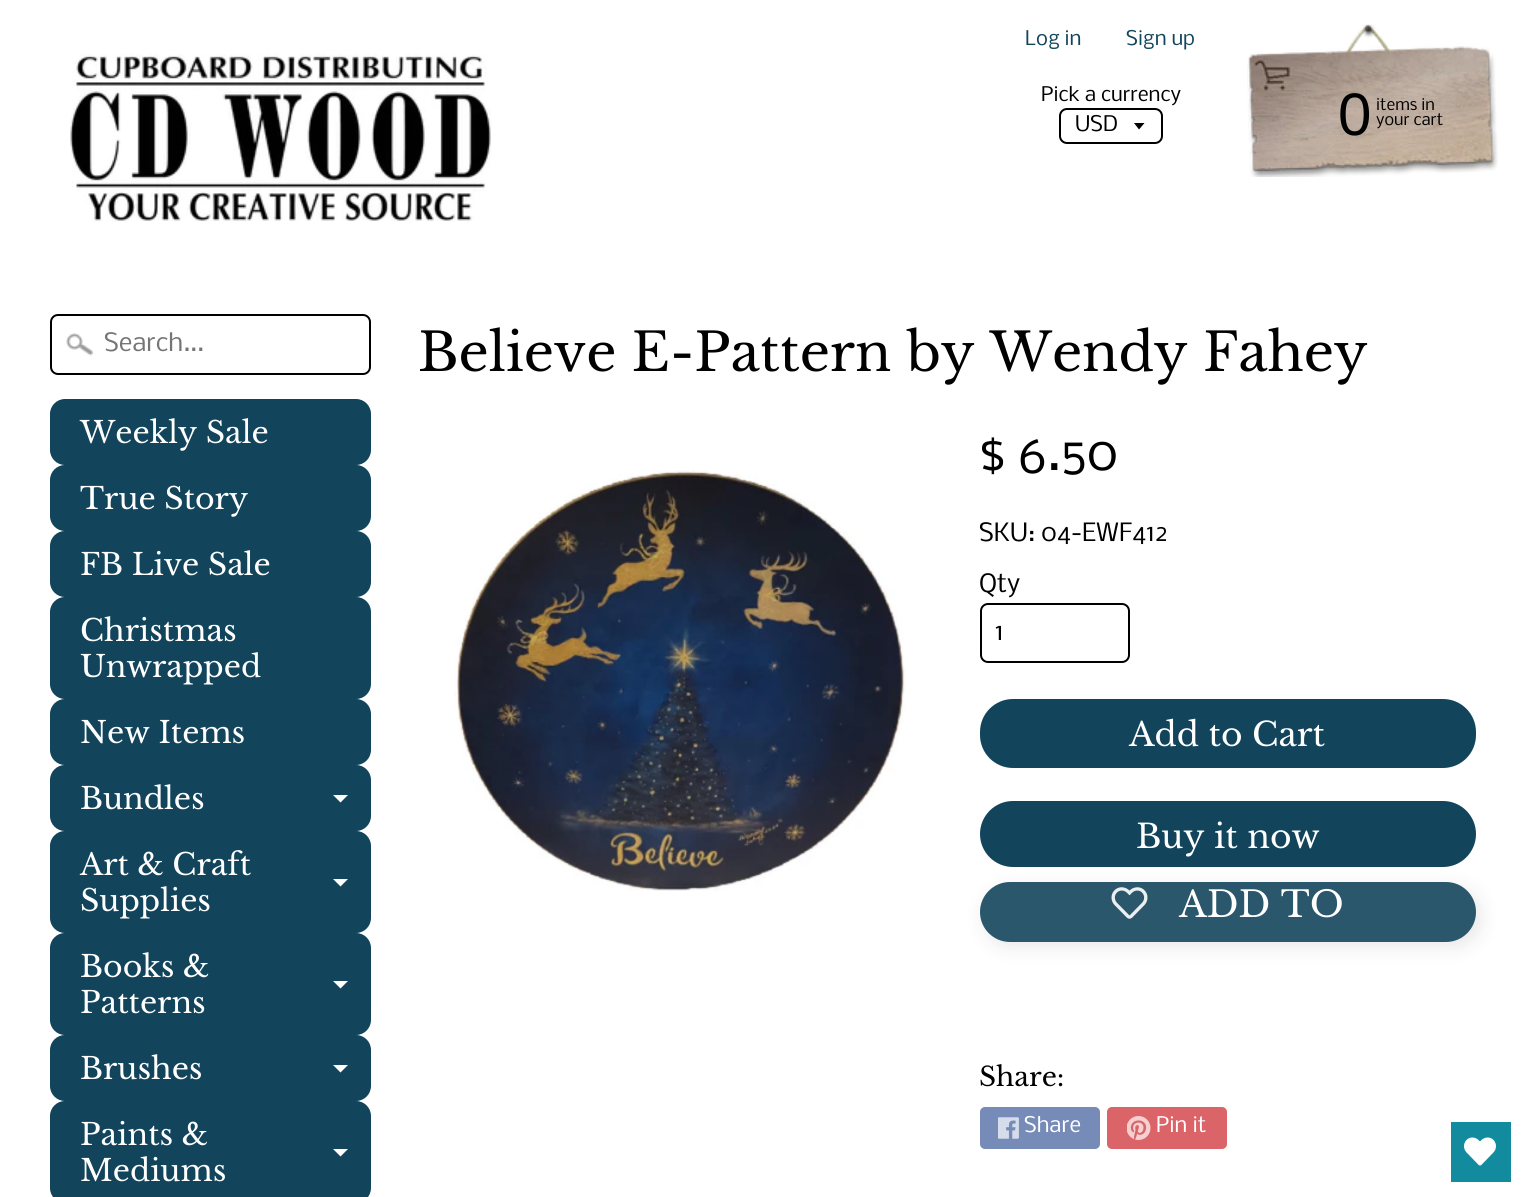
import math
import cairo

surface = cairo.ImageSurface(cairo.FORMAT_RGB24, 1525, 1197)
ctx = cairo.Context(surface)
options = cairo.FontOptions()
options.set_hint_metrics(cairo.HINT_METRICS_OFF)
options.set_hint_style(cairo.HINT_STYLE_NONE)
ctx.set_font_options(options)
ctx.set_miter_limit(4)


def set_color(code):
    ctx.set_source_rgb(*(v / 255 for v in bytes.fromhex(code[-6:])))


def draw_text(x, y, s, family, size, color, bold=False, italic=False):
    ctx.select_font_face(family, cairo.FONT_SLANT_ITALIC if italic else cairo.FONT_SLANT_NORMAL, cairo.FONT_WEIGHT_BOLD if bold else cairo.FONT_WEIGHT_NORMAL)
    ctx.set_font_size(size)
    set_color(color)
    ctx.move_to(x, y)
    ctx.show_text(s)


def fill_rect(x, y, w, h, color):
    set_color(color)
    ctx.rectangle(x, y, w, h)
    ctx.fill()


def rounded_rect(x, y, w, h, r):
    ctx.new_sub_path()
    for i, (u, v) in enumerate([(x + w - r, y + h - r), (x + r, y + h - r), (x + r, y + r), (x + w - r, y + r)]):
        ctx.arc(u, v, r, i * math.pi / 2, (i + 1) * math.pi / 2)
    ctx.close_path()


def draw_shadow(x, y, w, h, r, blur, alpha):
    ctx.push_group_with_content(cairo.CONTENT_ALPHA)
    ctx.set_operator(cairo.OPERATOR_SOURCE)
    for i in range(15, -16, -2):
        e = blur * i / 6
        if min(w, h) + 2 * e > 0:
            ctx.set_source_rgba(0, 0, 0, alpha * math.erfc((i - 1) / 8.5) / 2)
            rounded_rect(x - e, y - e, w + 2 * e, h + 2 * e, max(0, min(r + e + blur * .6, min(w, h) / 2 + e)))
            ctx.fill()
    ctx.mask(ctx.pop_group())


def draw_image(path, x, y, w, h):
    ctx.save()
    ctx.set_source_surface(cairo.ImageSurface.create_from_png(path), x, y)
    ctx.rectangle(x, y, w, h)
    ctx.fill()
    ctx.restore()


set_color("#ffffff")
ctx.paint()
draw_text(1025, 45, "Log in", "Nobile", 19.25, "#12445b")
draw_text(1126, 45, "Sign up", "Nobile", 19.25, "#12445b")
draw_image("assets/img1.png", 70, 54, 422, 168)
draw_image("assets/img2.png", 1247, 24, 251, 153)
draw_text(1338, 135, "0", "Liberation Sans", 60, "#000000")
draw_text(1376, 110, "items in", "Nobile", 15.5, "#000000")
draw_text(1376, 125, "your cart", "Nobile", 15.5, "#000000")
draw_text(1041, 101, "Pick a currency", "Nobile", 19.25, "#000000")
ctx.new_path()
ctx.move_to(1134, 123)
ctx.line_to(1139, 129.5)
ctx.line_to(1144.5, 123)
ctx.close_path()
ctx.fill()
rounded_rect(1060, 109, 102, 34, 7)
ctx.stroke()
draw_text(1075, 131, "USD", "Nobile", 20.5, "#000000")
draw_image("assets/img3.png", 66, 333, 27, 23)
rounded_rect(51, 315, 319, 59, 7)
ctx.stroke()
draw_text(104, 351, "Search...", "Nobile", 24, "#757575")
set_color("#12445b")
rounded_rect(50, 399, 321, 66, 15)
ctx.fill()
draw_text(80, 443, "Weekly Sale", "Libre Baskerville", 30, "#ffffff")
set_color("#12445b")
rounded_rect(50, 465, 321, 66, 15)
ctx.fill()
draw_text(80, 509, "True Story", "Libre Baskerville", 30, "#ffffff")
set_color("#12445b")
rounded_rect(50, 531, 321, 66, 15)
ctx.fill()
draw_text(80, 575, "FB Live Sale", "Libre Baskerville", 30, "#ffffff")
set_color("#12445b")
rounded_rect(50, 597, 321, 102, 15)
ctx.fill()
draw_text(80, 641, "Christmas", "Libre Baskerville", 30, "#ffffff")
draw_text(80, 677, "Unwrapped", "Libre Baskerville", 30, "#ffffff")
set_color("#12445b")
rounded_rect(50, 699, 321, 66, 15)
ctx.fill()
draw_text(80, 743, "New Items", "Libre Baskerville", 30, "#ffffff")
set_color("#12445b")
rounded_rect(50, 765, 321, 66, 15)
ctx.fill()
draw_text(80, 809, "Bundles", "Libre Baskerville", 30, "#ffffff")
ctx.new_path()
ctx.move_to(333, 795)
ctx.line_to(348, 795)
ctx.line_to(340.5, 802.5)
ctx.close_path()
ctx.fill()
set_color("#12445b")
rounded_rect(50, 831, 321, 102, 15)
ctx.fill()
draw_text(80, 875, "Art & Craft", "Libre Baskerville", 30, "#ffffff")
ctx.new_path()
ctx.move_to(333, 879)
ctx.line_to(348, 879)
ctx.line_to(340.5, 886.5)
ctx.close_path()
ctx.fill()
draw_text(80, 911, "Supplies", "Libre Baskerville", 30, "#ffffff")
set_color("#12445b")
rounded_rect(50, 933, 321, 102, 15)
ctx.fill()
draw_text(80, 977, "Books &", "Libre Baskerville", 30, "#ffffff")
ctx.new_path()
ctx.move_to(333, 981)
ctx.line_to(348, 981)
ctx.line_to(340.5, 988.5)
ctx.close_path()
ctx.fill()
draw_text(80, 1013, "Patterns", "Libre Baskerville", 30, "#ffffff")
set_color("#12445b")
rounded_rect(50, 1035, 321, 66, 15)
ctx.fill()
draw_text(80, 1079, "Brushes", "Libre Baskerville", 30, "#ffffff")
ctx.new_path()
ctx.move_to(333, 1065)
ctx.line_to(348, 1065)
ctx.line_to(340.5, 1072.5)
ctx.close_path()
ctx.fill()
set_color("#12445b")
rounded_rect(50, 1101, 321, 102, 15)
ctx.fill()
draw_text(80, 1145, "Paints &", "Libre Baskerville", 30, "#ffffff")
ctx.new_path()
ctx.move_to(333, 1149)
ctx.line_to(348, 1149)
ctx.line_to(340.5, 1156.5)
ctx.close_path()
ctx.fill()
draw_text(80, 1181, "Mediums", "Libre Baskerville", 30, "#ffffff")
draw_text(418, 371, "Believe E-Pattern by Wendy Fahey", "Libre Baskerville", 52.75, "#000000")
draw_image("assets/img4.png", 454, 470, 452, 421)
draw_text(979, 470, "$ 6.50", "Nobile", 48, "#000000")
draw_text(979, 541, "SKU: 04-EWF412", "Nobile", 24, "#000000")
draw_text(979, 592, "Qty", "Nobile", 24, "#000000")
rounded_rect(981, 604, 148, 58, 7)
ctx.stroke()
draw_text(995, 640, "1", "Nobile", 24, "#000000")
set_color("#12445b")
rounded_rect(980, 699, 496, 69, 33)
ctx.fill()
draw_text(1129, 746, "Add to Cart", "Libre Baskerville", 33, "#ffffff")
set_color("#12445b")
rounded_rect(980, 801, 496, 66, 33)
ctx.fill()
draw_text(1136, 848, "Buy it now", "Libre Baskerville", 33, "#ffffff")
set_color("#1a1a1a")
draw_shadow(984, 887, 497, 60, 30, 9, 0.1)
set_color("#2a576b")
rounded_rect(980, 882, 496, 60, 30)
ctx.fill()
draw_image("assets/img5.png", 1111, 887, 37, 32)
draw_text(1179, 917, "ADD TO", "Libre Baskerville", 36, "#ffffff")
draw_text(979, 1086, "Share:", "Libre Baskerville", 26.5, "#000000")
set_color("#768bb7")
rounded_rect(980, 1107, 120, 42, 5)
ctx.fill()
draw_image("assets/img6.png", 998, 1117, 21, 22)
draw_text(1024, 1132, "Share", "Nobile", 20.5, "#ffffff")
set_color("#db6468")
rounded_rect(1107, 1107, 120, 42, 5)
ctx.fill()
draw_image("assets/img7.png", 1127, 1116, 24, 24)
draw_text(1156, 1132, "Pin it", "Nobile", 20.5, "#ffffff")
fill_rect(1451, 1122, 60, 60, "#128b9e")
draw_image("assets/img8.png", 1464, 1137, 32, 29)
surface.write_to_png("output.png")
